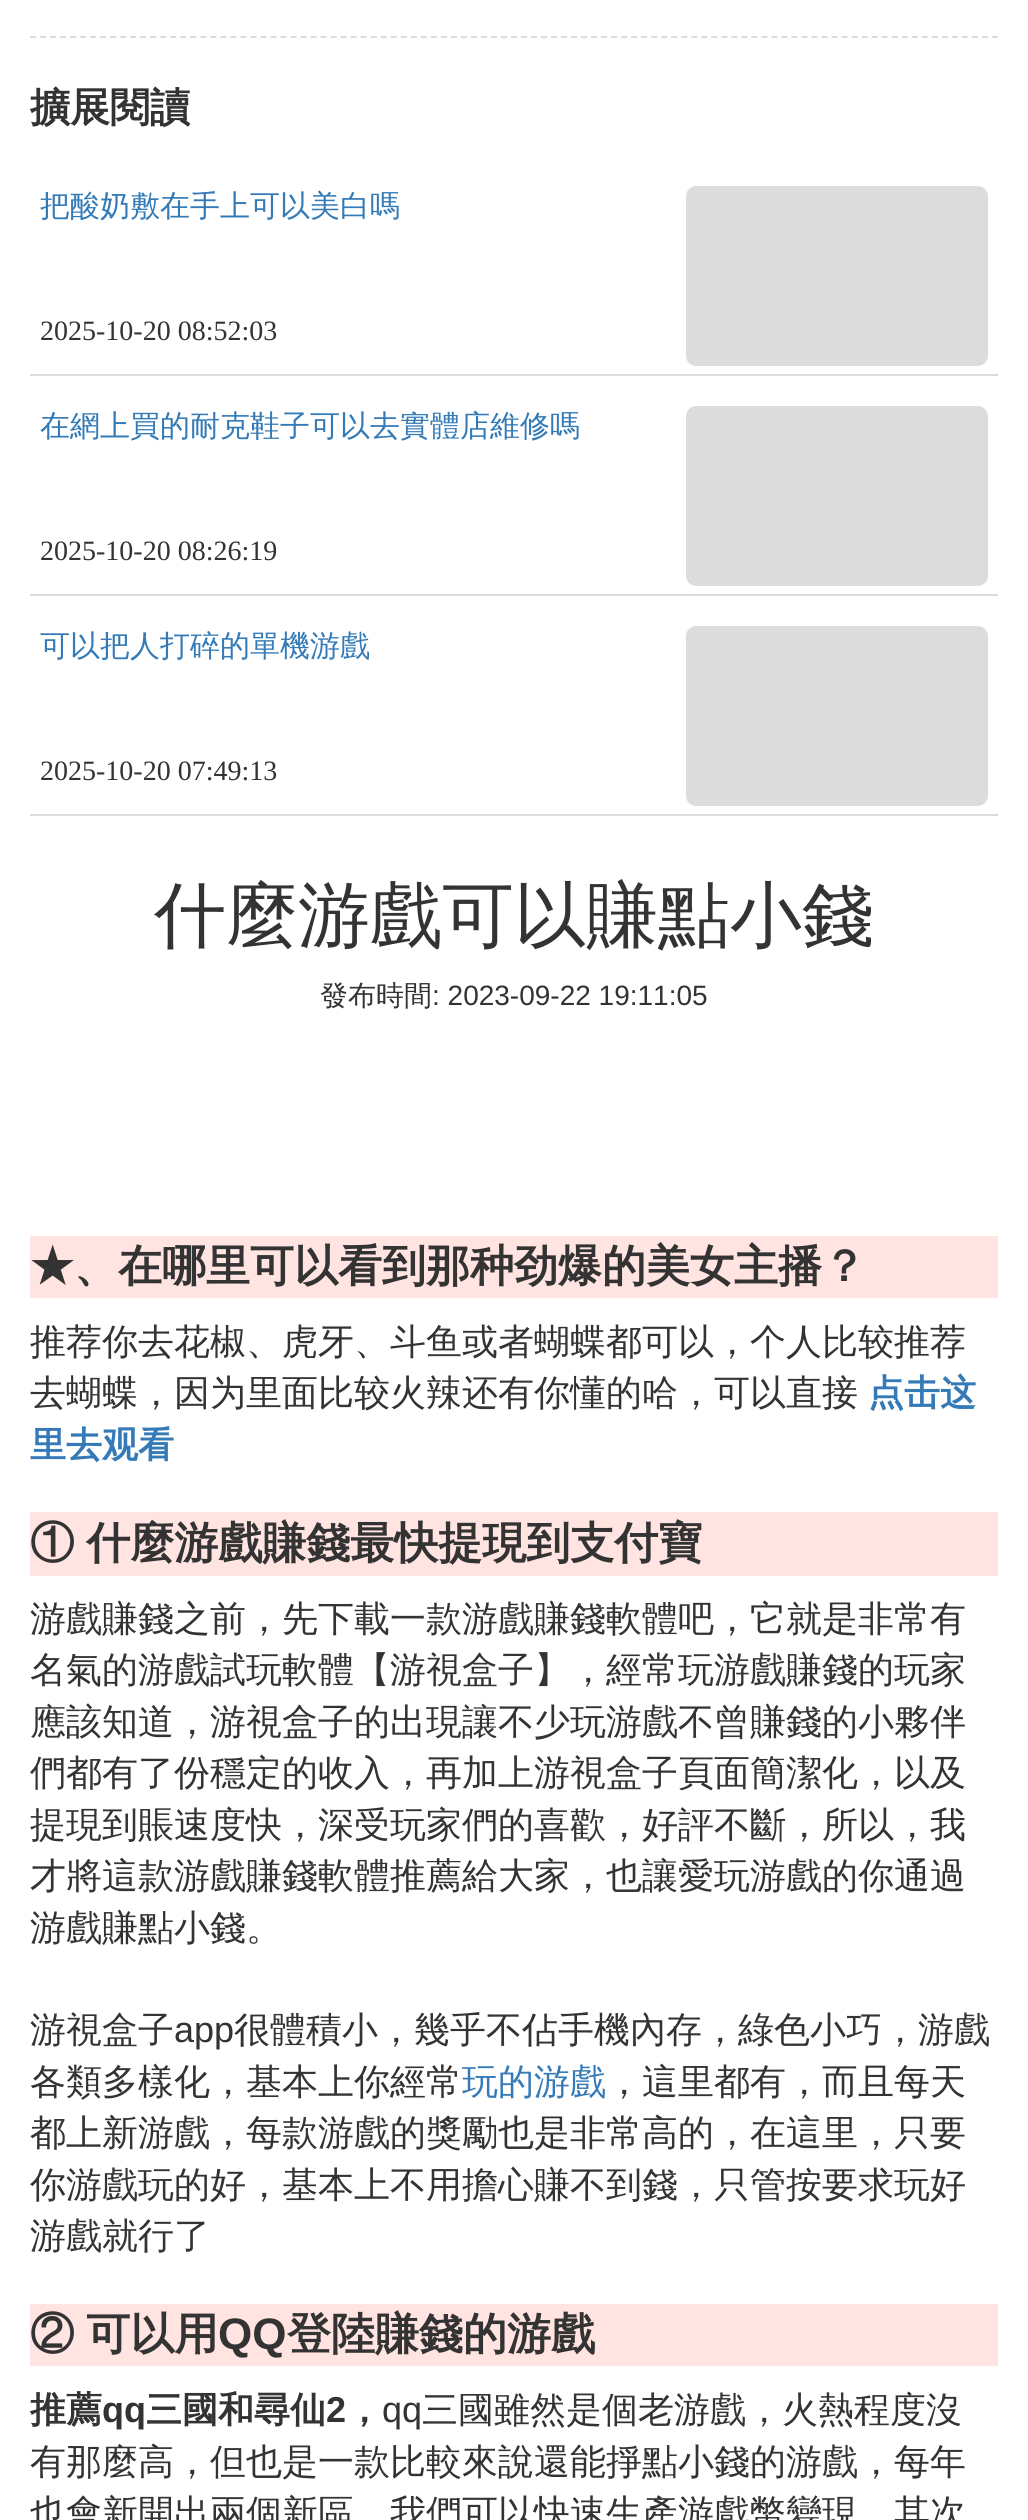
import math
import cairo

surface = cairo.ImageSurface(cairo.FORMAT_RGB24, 1028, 2520)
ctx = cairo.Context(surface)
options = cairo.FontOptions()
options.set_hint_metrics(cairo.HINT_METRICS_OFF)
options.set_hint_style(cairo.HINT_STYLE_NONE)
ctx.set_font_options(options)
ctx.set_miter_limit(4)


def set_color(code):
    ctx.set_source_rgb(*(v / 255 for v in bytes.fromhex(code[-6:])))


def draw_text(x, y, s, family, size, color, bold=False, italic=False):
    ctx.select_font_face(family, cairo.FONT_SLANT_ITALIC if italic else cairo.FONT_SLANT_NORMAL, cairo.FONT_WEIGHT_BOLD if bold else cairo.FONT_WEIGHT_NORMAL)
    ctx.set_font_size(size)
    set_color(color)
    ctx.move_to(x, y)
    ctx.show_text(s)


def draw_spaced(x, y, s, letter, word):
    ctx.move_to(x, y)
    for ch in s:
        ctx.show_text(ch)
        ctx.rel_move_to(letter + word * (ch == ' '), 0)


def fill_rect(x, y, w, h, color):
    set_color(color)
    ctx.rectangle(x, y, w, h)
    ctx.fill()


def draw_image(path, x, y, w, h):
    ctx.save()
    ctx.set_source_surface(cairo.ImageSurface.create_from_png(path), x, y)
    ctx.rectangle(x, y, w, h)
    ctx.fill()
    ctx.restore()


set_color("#ffffff")
ctx.paint()
ctx.new_path()
ctx.move_to(30, 37)
ctx.line_to(998, 37)
set_color("#dcdcdc")
ctx.set_dash([6, 4.02])
ctx.stroke()
draw_text(30, 121, "擴展閱讀", "WenQuanYi Zen Hei", 40, "#333333", bold=True)
fill_rect(30, 374, 968, 2, "#dcdcdc")
draw_text(40, 216, "把酸奶敷在手上可以美白嗎", "WenQuanYi Zen Hei Medium", 30, "#337ab7")
draw_text(40, 340, "2025-10-20 08:52:03", "Liberation Serif", 28, "#333333")
draw_image("assets/img1.png", 686, 186, 302, 180)
fill_rect(30, 594, 968, 2, "#dcdcdc")
draw_text(40, 436, "在網上買的耐克鞋子可以去實體店維修嗎", "WenQuanYi Zen Hei Medium", 30, "#337ab7")
draw_text(40, 560, "2025-10-20 08:26:19", "Liberation Serif", 28, "#333333")
draw_image("assets/img1.png", 686, 406, 302, 180)
fill_rect(30, 814, 968, 2, "#dcdcdc")
draw_text(40, 656, "可以把人打碎的單機游戲", "WenQuanYi Zen Hei Medium", 30, "#337ab7")
draw_text(40, 780, "2025-10-20 07:49:13", "Liberation Serif", 28, "#333333")
draw_image("assets/img2.png", 686, 626, 302, 180)
draw_text(154, 940, "什麼游戲可以賺點小錢", "WenQuanYi Zen Hei Medium", 72, "#333333")
draw_text(320, 1005, "發布時間", "WenQuanYi Zen Hei Medium", 28, "#333333")
draw_text(432, 1005, ": 2023-09-22 19:11:05", "Liberation Sans", 28, "#333333")
fill_rect(30, 1236, 968, 62, "#ffe4e1")
draw_text(30, 1281, "★、在哪里可以看到那种劲爆的美女主播？", "WenQuanYi Zen Hei", 44, "#333333", bold=True)
draw_text(30, 1354, "推荐你去花椒、虎牙、斗鱼或者蝴蝶都可以，个人比较推荐", "WenQuanYi Zen Hei Medium", 36, "#333333")
draw_text(30, 1405, "去蝴蝶，因为里面比较火辣还有你懂的哈，可以直接", "WenQuanYi Zen Hei Medium", 36, "#333333")
draw_text(868, 1405, "点击这", "WenQuanYi Zen Hei", 36, "#337ab7", bold=True)
draw_text(30, 1457, "里去观看", "WenQuanYi Zen Hei", 36, "#337ab7", bold=True)
fill_rect(30, 1512, 968, 64, "#ffe4e1")
ctx.set_font_size(44)
set_color("#333333")
draw_spaced(30, 1558, "① 什麼游戲賺錢最快提現到支付寶", 0, -1)
draw_text(30, 1631, "游戲賺錢之前，先下載一款游戲賺錢軟體吧，它就是非常有", "WenQuanYi Zen Hei Medium", 36, "#333333")
draw_text(30, 1682, "名氣的游戲試玩軟體【游視盒子】，經常玩游戲賺錢的玩家", "WenQuanYi Zen Hei Medium", 36, "#333333")
draw_text(30, 1734, "應該知道，游視盒子的出現讓不少玩游戲不曾賺錢的小夥伴", "WenQuanYi Zen Hei Medium", 36, "#333333")
draw_text(30, 1785, "們都有了份穩定的收入，再加上游視盒子頁面簡潔化，以及", "WenQuanYi Zen Hei Medium", 36, "#333333")
draw_text(30, 1837, "提現到賬速度快，深受玩家們的喜歡，好評不斷，所以，我", "WenQuanYi Zen Hei Medium", 36, "#333333")
draw_text(30, 1888, "才將這款游戲賺錢軟體推薦給大家，也讓愛玩游戲的你通過", "WenQuanYi Zen Hei Medium", 36, "#333333")
draw_text(30, 1940, "游戲賺點小錢。", "WenQuanYi Zen Hei Medium", 36, "#333333")
draw_text(30, 2042, "游視盒子", "WenQuanYi Zen Hei Medium", 36, "#333333")
draw_text(174, 2042, "app", "Liberation Sans", 36, "#333333")
draw_text(234, 2042, "很體積小，幾乎不佔手機內存，綠色小巧，游戲", "WenQuanYi Zen Hei Medium", 36, "#333333")
draw_text(30, 2094, "各類多樣化，基本上你經常", "WenQuanYi Zen Hei Medium", 36, "#333333")
draw_text(462, 2094, "玩的游戲", "WenQuanYi Zen Hei Medium", 36, "#337ab7")
draw_text(606, 2094, "，這里都有，而且每天", "WenQuanYi Zen Hei Medium", 36, "#333333")
draw_text(30, 2145, "都上新游戲，每款游戲的獎勵也是非常高的，在這里，只要", "WenQuanYi Zen Hei Medium", 36, "#333333")
draw_text(30, 2197, "你游戲玩的好，基本上不用擔心賺不到錢，只管按要求玩好", "WenQuanYi Zen Hei Medium", 36, "#333333")
draw_text(30, 2248, "游戲就行了", "WenQuanYi Zen Hei Medium", 36, "#333333")
fill_rect(30, 2304, 968, 62, "#ffe4e1")
ctx.select_font_face("WenQuanYi Zen Hei", cairo.FONT_SLANT_NORMAL, cairo.FONT_WEIGHT_BOLD)
ctx.set_font_size(44)
set_color("#333333")
draw_spaced(30, 2349, "② 可以用", 0, -1)
draw_text(218, 2349, "QQ", "Liberation Sans", 44, "#333333", bold=True)
draw_text(287, 2349, "登陸賺錢的游戲", "WenQuanYi Zen Hei", 44, "#333333", bold=True)
draw_text(30, 2422, "推薦", "WenQuanYi Zen Hei", 36, "#333333", bold=True)
draw_text(102, 2422, "qq", "Liberation Sans", 36, "#333333", bold=True)
draw_text(146, 2422, "三國和尋仙", "WenQuanYi Zen Hei", 36, "#333333", bold=True)
draw_text(326, 2422, "2", "Liberation Sans", 36, "#333333", bold=True)
draw_text(346, 2422, "，", "WenQuanYi Zen Hei", 36, "#333333", bold=True)
draw_text(382, 2422, "qq", "Liberation Sans", 36, "#333333")
draw_text(422, 2422, "三國雖然是個老游戲，火熱程度沒", "WenQuanYi Zen Hei Medium", 36, "#333333")
draw_text(30, 2474, "有那麼高，但也是一款比較來說還能掙點小錢的游戲，每年", "WenQuanYi Zen Hei Medium", 36, "#333333")
draw_text(30, 2525, "也會新開出兩個新區，我們可以快速生產游戲幣變現。其次", "WenQuanYi Zen Hei Medium", 36, "#333333")
surface.write_to_png("output.png")
